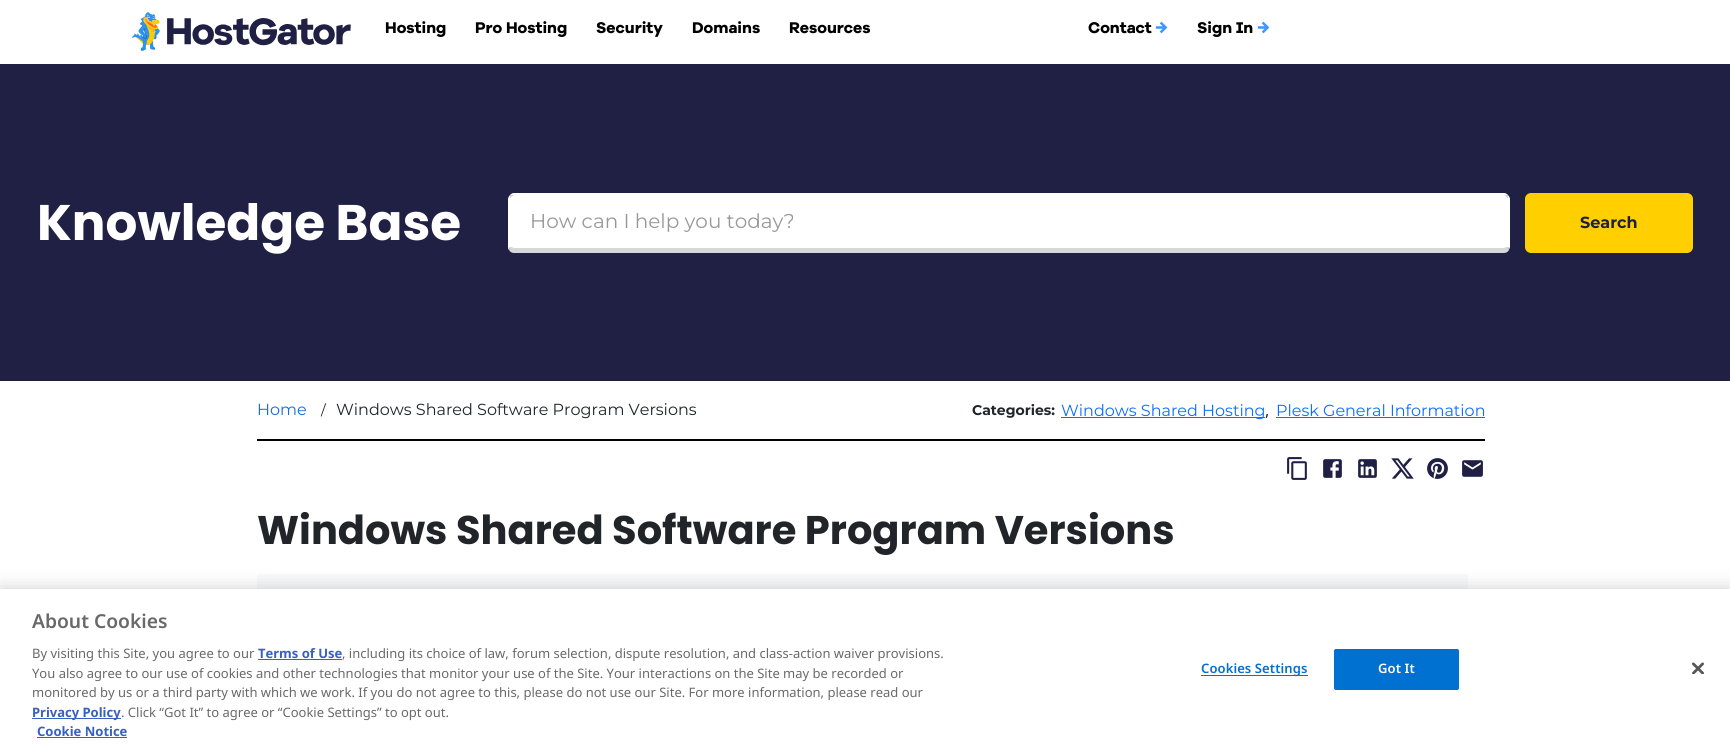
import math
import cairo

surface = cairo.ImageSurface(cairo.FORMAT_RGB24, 1730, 752)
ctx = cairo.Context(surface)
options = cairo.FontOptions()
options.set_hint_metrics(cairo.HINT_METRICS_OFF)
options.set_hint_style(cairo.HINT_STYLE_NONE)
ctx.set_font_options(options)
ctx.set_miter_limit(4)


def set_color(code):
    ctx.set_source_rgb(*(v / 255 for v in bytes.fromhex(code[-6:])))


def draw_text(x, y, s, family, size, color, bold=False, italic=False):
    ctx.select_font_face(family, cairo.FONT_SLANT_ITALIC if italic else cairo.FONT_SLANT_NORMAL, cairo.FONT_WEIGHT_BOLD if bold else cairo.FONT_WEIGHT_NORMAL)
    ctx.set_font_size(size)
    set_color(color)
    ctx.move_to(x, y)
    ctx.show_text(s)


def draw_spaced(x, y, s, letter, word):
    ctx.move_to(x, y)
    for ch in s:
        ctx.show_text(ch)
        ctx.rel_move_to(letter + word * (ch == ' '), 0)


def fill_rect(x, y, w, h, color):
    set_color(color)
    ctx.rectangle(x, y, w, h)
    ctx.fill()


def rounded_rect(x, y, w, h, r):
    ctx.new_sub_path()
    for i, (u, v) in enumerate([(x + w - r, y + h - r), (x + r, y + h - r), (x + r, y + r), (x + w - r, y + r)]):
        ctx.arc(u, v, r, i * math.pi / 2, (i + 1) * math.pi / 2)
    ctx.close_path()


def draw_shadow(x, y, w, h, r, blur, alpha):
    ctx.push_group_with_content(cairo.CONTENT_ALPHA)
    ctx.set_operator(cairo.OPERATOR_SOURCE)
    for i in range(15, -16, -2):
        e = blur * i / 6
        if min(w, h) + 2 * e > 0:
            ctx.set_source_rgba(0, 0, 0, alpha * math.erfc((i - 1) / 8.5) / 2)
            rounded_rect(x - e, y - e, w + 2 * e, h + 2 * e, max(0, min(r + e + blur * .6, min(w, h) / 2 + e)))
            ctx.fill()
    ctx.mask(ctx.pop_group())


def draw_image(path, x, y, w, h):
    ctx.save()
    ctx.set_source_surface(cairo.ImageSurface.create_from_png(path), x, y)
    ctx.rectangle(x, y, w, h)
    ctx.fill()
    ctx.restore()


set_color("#ffffff")
ctx.paint()
draw_image("assets/img1.png", 132, 12, 219, 39)
draw_text(385, 33, "Hosting", "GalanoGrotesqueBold", 16, "#000000")
draw_text(475, 33, "Pro Hosting", "GalanoGrotesqueBold", 16, "#000000")
draw_text(596, 33, "Security", "GalanoGrotesqueBold", 16, "#000000")
draw_text(692, 33, "Domains", "GalanoGrotesqueBold", 16, "#000000")
draw_text(789, 33, "Resources", "GalanoGrotesqueBold", 16, "#000000")
draw_text(1088, 33, "Contact", "GalanoGrotesqueBold", 16, "#000000")
draw_image("assets/img2.png", 1155, 21, 13, 13)
draw_text(1197, 33, "Sign In", "GalanoGrotesqueBold", 16, "#000000")
draw_image("assets/img2.png", 1257, 21, 13, 13)
fill_rect(0, 64, 1730, 317, "#1f2044")
draw_text(37, 240, "Knowledge Base", "Poppins", 50, "#ffffff", bold=True)
ctx.new_path()
ctx.move_to(514, 195)
ctx.line_to(1504, 195)
ctx.curve_to(1506, 195, 1508, 197, 1508, 199)
ctx.line_to(1508, 247)
ctx.curve_to(1508, 248, 1506, 248, 1504, 248)
ctx.line_to(514, 248)
ctx.curve_to(512, 248, 510, 248, 510, 247)
ctx.line_to(510, 199)
ctx.curve_to(510, 197, 512, 195, 514, 195)
ctx.close_path()
ctx.fill()
ctx.new_path()
ctx.move_to(514, 193)
ctx.curve_to(512, 193, 511, 194, 510, 195)
ctx.line_to(511, 196)
ctx.line_to(514, 195)
ctx.line_to(1504, 195)
ctx.line_to(1507, 196)
ctx.line_to(1508, 195)
ctx.curve_to(1507, 194, 1506, 193, 1504, 193)
ctx.close_path()
ctx.fill()
ctx.new_path()
ctx.move_to(1510, 247)
ctx.line_to(1510, 199)
ctx.curve_to(1510, 198, 1509, 196, 1508, 195)
ctx.line_to(1507, 196)
ctx.line_to(1508, 199)
ctx.line_to(1508, 247)
ctx.line_to(1509, 250)
ctx.close_path()
ctx.fill()
set_color("#d7d7d7")
ctx.new_path()
ctx.move_to(514, 253)
ctx.line_to(1504, 253)
ctx.curve_to(1506, 253, 1508, 252, 1509, 250)
ctx.line_to(1508, 247)
ctx.line_to(1504, 248)
ctx.line_to(514, 248)
ctx.line_to(510, 247)
ctx.line_to(509, 250)
ctx.curve_to(510, 252, 512, 253, 514, 253)
ctx.close_path()
ctx.fill()
set_color("#ffffff")
ctx.new_path()
ctx.move_to(508, 199)
ctx.line_to(508, 247)
ctx.curve_to(508, 248, 508, 249, 509, 250)
ctx.line_to(510, 247)
ctx.line_to(510, 199)
ctx.line_to(511, 196)
ctx.line_to(510, 195)
ctx.curve_to(509, 196, 508, 198, 508, 199)
ctx.close_path()
ctx.fill()
draw_text(530, 228, "How can I help you today?", "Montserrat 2", 20, "#999999")
set_color("#ffcf00")
rounded_rect(1525, 193, 168, 60, 6)
ctx.fill()
draw_text(1580, 228, "Search", "Montserrat", 16, "#1f2044", bold=True)
draw_text(257, 415, "Home", "Montserrat", 16, "#196bde")
draw_text(321, 415, "/", "Montserrat", 14, "#212529")
draw_text(336, 415, "Windows Shared Software Program Versions", "Montserrat", 16, "#212529")
draw_text(972, 415, "Categories:", "Montserrat", 14, "#212529", bold=True)
fill_rect(1061, 417, 204, 1, "#0d6efd")
draw_text(1061, 416, "Windows Shared Hosting", "Montserrat", 16, "#0d6efd")
draw_text(1265, 416, ",", "Noto Sans", 16, "#212529")
draw_text(1276, 416, "Plesk General Information", "Montserrat", 16, "#0d6efd")
fill_rect(1276, 417, 209, 1, "#0d6efd")
fill_rect(257, 439, 1228, 2, "#000000")
draw_image("assets/img3.png", 1287, 457, 20, 23)
draw_image("assets/img4.png", 1323, 459, 19, 19)
draw_image("assets/img5.png", 1358, 459, 19, 19)
draw_image("assets/img6.png", 1391, 458, 23, 21)
draw_image("assets/img7.png", 1427, 458, 21, 21)
draw_image("assets/img8.png", 1462, 460, 21, 17)
draw_text(257, 544, "Windows Shared Software Program Versions", "Poppins", 40, "#212529", bold=True)
fill_rect(257, 574, 1211, 15, "#f8f9fa")
set_color("#000000")
draw_shadow(0, 589, 1730, 163, 0, 9, 0.2)
fill_rect(0, 589, 1730, 163, "#ffffff")
draw_text(32, 628, "About Cookies", "Noto Sans SemiBold", 19.25, "#696969")
draw_text(32, 658, "By visiting this Site, you agree to our", "Noto Sans", 13, "#696969")
draw_text(258, 658, "Terms of Use", "Noto Sans", 13, "#3860be", bold=True)
fill_rect(258, 659, 84, 1, "#3860be")
draw_text(342, 658, ", including its choice of law, forum selection, dispute resolution, and class-action waiver provisions.", "Noto Sans", 13, "#696969")
draw_text(32, 678, "You also agree to our use of cookies and other technologies that monitor your use of the Site. Your interactions on the Site may be recorded or", "Noto Sans", 13, "#696969")
draw_text(32, 697, "monitored by us or a third party with which we work. If you do not agree to this, please do not use our Site. For more information, please read our", "Noto Sans", 13, "#696969")
fill_rect(32, 718, 89, 1, "#3860be")
draw_text(32, 717, "Privacy Policy", "Noto Sans", 13, "#3860be", bold=True)
draw_text(121, 717, ". Click “Got It” to agree or “Cookie Settings” to opt out.", "Noto Sans", 13, "#696969")
draw_text(37, 736, "Cookie Notice", "Noto Sans", 13, "#3860be", bold=True)
fill_rect(37, 737, 90, 1, "#3860be")
fill_rect(1201, 675, 107, 1, "#0070d1")
ctx.select_font_face("Noto Sans SemiBold")
draw_spaced(1201, 673, "Cookies Settings", 0.1, 0)
rounded_rect(1334.5, 649.5, 124, 40, 1.5)
ctx.fill_preserve()
ctx.set_line_width(1)
ctx.stroke()
set_color("#ffffff")
draw_spaced(1378, 673, "Got It", 0.1, 0)
draw_image("assets/img9.png", 1692, 662, 12, 12)
surface.write_to_png("output.png")
